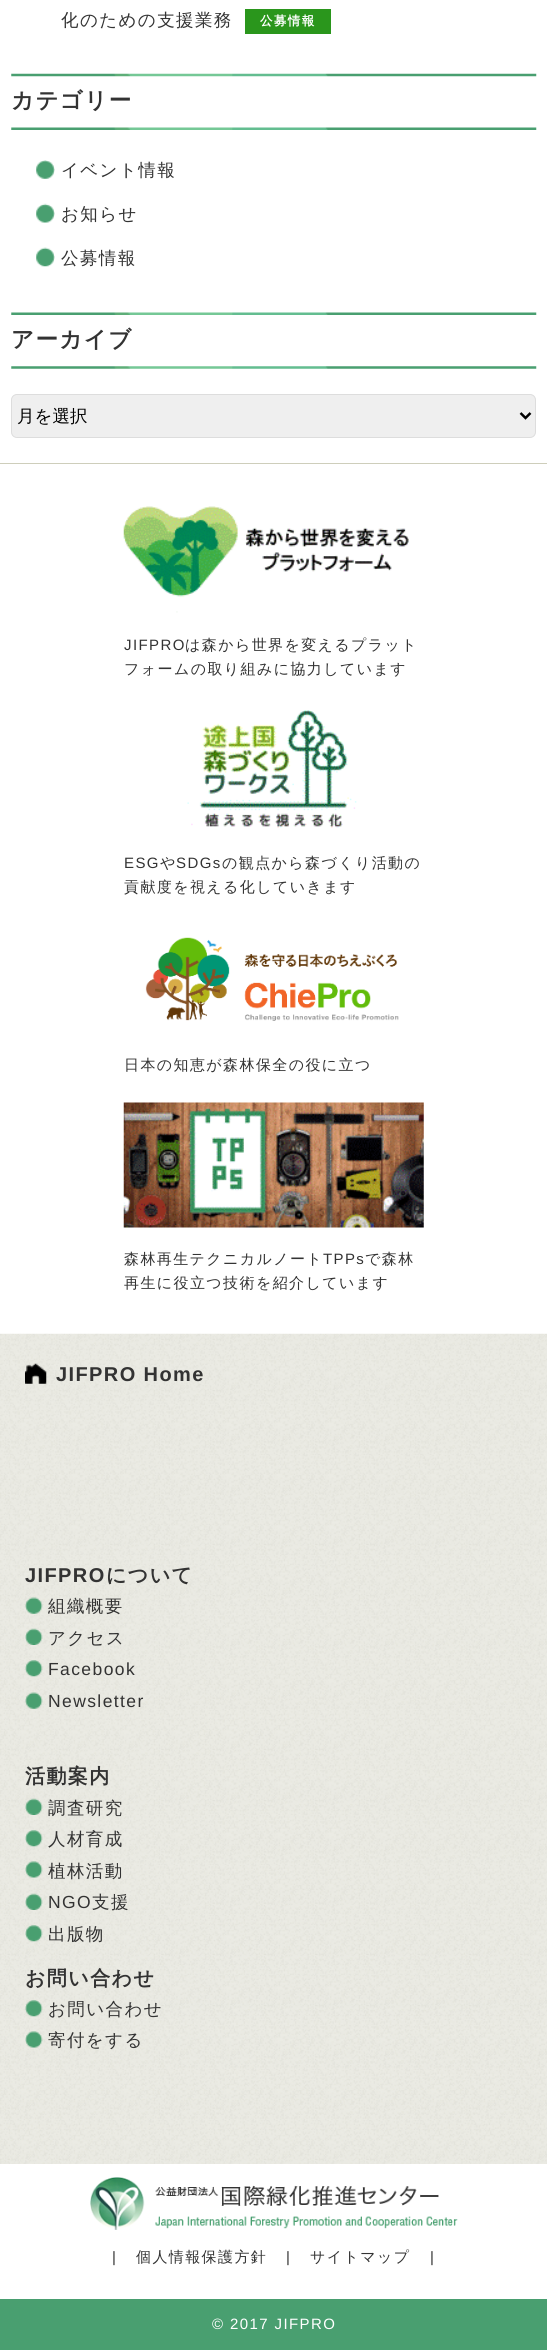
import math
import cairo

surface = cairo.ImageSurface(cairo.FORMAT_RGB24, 547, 2350)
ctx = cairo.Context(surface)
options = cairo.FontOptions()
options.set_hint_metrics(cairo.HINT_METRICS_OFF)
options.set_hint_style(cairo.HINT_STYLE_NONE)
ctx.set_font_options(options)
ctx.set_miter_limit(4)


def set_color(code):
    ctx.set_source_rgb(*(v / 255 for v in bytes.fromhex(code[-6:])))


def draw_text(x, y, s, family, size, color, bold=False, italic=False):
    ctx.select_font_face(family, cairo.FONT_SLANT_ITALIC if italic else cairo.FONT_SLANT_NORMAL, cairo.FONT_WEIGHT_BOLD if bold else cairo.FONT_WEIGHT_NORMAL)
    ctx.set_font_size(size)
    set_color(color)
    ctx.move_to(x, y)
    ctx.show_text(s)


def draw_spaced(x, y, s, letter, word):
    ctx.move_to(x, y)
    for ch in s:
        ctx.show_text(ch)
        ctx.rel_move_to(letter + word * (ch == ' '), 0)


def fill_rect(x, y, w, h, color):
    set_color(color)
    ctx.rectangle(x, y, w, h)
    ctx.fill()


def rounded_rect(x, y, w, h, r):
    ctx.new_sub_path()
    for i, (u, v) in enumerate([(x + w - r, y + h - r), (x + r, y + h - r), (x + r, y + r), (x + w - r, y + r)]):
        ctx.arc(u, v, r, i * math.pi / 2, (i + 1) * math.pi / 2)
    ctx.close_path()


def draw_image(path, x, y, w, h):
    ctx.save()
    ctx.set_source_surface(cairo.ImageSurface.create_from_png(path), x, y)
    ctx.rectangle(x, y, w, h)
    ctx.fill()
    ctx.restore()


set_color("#ffffff")
ctx.paint()
ctx.select_font_face("WenQuanYi Zen Hei Medium")
ctx.set_font_size(17.5)
set_color("#333333")
draw_spaced(61, 26, "化のための支援業務", 1.4, 0)
fill_rect(245, 9, 86, 25, "#2a961c")
ctx.select_font_face("WenQuanYi Zen Hei", cairo.FONT_SLANT_NORMAL, cairo.FONT_WEIGHT_BOLD)
ctx.set_font_size(12.5)
set_color("#ffffff")
draw_spaced(260, 25, "公募情報", 1.4, 0)
draw_image("assets/img1.png", 11, 73, 526, 57)
ctx.set_font_size(22.5)
set_color("#333333")
draw_spaced(11, 108, "カテゴリー", 1.4, 0)
draw_image("assets/img2.png", 36, 160, 19, 19)
ctx.select_font_face("WenQuanYi Zen Hei Medium")
ctx.set_font_size(17.5)
draw_spaced(61, 176, "イベント情報", 1.4, 0)
draw_image("assets/img3.png", 36, 203, 19, 20)
draw_spaced(61, 220, "お知らせ", 1.4, 0)
draw_image("assets/img4.png", 36, 247, 19, 20)
draw_spaced(61, 264, "公募情報", 1.4, 0)
draw_image("assets/img5.png", 11, 312, 526, 57)
ctx.select_font_face("WenQuanYi Zen Hei", cairo.FONT_SLANT_NORMAL, cairo.FONT_WEIGHT_BOLD)
ctx.set_font_size(22.5)
draw_spaced(11, 347, "アーカイブ", 1.4, 0)
set_color("#efefef")
rounded_rect(11.5, 394.5, 524, 43, 5.5)
ctx.fill_preserve()
set_color("#dddddd")
ctx.set_line_width(1)
ctx.stroke()
ctx.new_path()
ctx.move_to(520.5, 413)
ctx.line_to(525.5, 418)
ctx.line_to(530.5, 413)
set_color("#000000")
ctx.set_line_width(2.5)
ctx.stroke()
draw_text(17, 422, "月を選択", "WenQuanYi Zen Hei Medium", 17.5, "#000000")
fill_rect(0, 463, 547, 1, "#cecebb")
draw_image("assets/img6.png", 123, 506, 286, 107)
ctx.select_font_face("Liberation Sans")
ctx.set_font_size(15)
set_color("#333333")
draw_spaced(124, 650, "JIFPRO", 1.4, 0)
ctx.select_font_face("WenQuanYi Zen Hei Medium")
draw_spaced(185, 650, "は森から世界を変えるプラット", 1.4, 0)
draw_spaced(124, 674, "フォームの取り組みに協力しています", 1.4, 0)
draw_image("assets/img7.png", 187, 710, 170, 118)
ctx.select_font_face("Liberation Sans")
draw_spaced(124, 868, "ESG", 1.4, 0)
ctx.select_font_face("WenQuanYi Zen Hei Medium")
draw_spaced(160, 868, "や", 1.4, 0)
ctx.select_font_face("Liberation Sans")
draw_spaced(176, 868, "SDGs", 1.4, 0)
ctx.select_font_face("WenQuanYi Zen Hei Medium")
draw_spaced(222, 868, "の観点から森づくり活動の", 1.4, 0)
draw_spaced(124, 892, "貢献度を視える化していきます", 1.4, 0)
draw_image("assets/img8.png", 145, 937, 254, 84)
draw_spaced(124, 1070, "日本の知恵が森林保全の役に立つ", 1.4, 0)
draw_image("assets/img9.png", 123, 1102, 301, 126)
draw_spaced(124, 1264, "森林再生テクニカルノート", 1.4, 0)
ctx.select_font_face("Liberation Sans")
draw_spaced(323, 1264, "TPPs", 1.4, 0)
ctx.select_font_face("WenQuanYi Zen Hei Medium")
draw_spaced(365, 1264, "で森林", 1.4, 0)
draw_spaced(124, 1288, "再生に役立つ技術を紹介しています", 1.4, 0)
draw_image("assets/img10.png", 0, 1333, 547, 831)
draw_image("assets/img11.png", 25, 1363, 22, 21)
ctx.select_font_face("Liberation Sans", cairo.FONT_SLANT_NORMAL, cairo.FONT_WEIGHT_BOLD)
ctx.set_font_size(20)
draw_spaced(56, 1381, "JIFPRO Home", 1.4, 0)
draw_spaced(25, 1582, "JIFPRO", 1.4, 0)
ctx.select_font_face("WenQuanYi Zen Hei", cairo.FONT_SLANT_NORMAL, cairo.FONT_WEIGHT_BOLD)
draw_spaced(106, 1582, "について", 1.4, 0)
draw_image("assets/img12.png", 25, 1597, 18, 17)
ctx.select_font_face("WenQuanYi Zen Hei Medium")
ctx.set_font_size(17.5)
draw_spaced(48, 1612, "組織概要", 1.4, 0)
draw_image("assets/img13.png", 25, 1628, 18, 17)
draw_spaced(48, 1644, "アクセス", 1.4, 0)
draw_image("assets/img14.png", 25, 1660, 18, 17)
ctx.select_font_face("Liberation Sans")
draw_spaced(48, 1675, "Facebook", 1.4, 0)
draw_image("assets/img15.png", 25, 1692, 18, 17)
draw_spaced(48, 1707, "Newsletter", 1.4, 0)
ctx.select_font_face("WenQuanYi Zen Hei", cairo.FONT_SLANT_NORMAL, cairo.FONT_WEIGHT_BOLD)
ctx.set_font_size(20)
draw_spaced(25, 1783, "活動案内", 1.4, 0)
draw_image("assets/img16.png", 25, 1798, 18, 17)
ctx.select_font_face("WenQuanYi Zen Hei Medium")
ctx.set_font_size(17.5)
draw_spaced(48, 1814, "調査研究", 1.4, 0)
draw_image("assets/img17.png", 25, 1830, 18, 17)
draw_spaced(48, 1845, "人材育成", 1.4, 0)
draw_image("assets/img18.png", 25, 1861, 18, 17)
draw_spaced(48, 1877, "植林活動", 1.4, 0)
draw_image("assets/img19.png", 25, 1893, 18, 17)
ctx.select_font_face("Liberation Sans")
draw_spaced(48, 1908, "NGO", 1.4, 0)
ctx.select_font_face("WenQuanYi Zen Hei Medium")
draw_spaced(92, 1908, "支援", 1.4, 0)
draw_image("assets/img20.png", 25, 1925, 18, 17)
draw_spaced(48, 1940, "出版物", 1.4, 0)
ctx.select_font_face("WenQuanYi Zen Hei", cairo.FONT_SLANT_NORMAL, cairo.FONT_WEIGHT_BOLD)
ctx.set_font_size(20)
draw_spaced(25, 1985, "お問い合わせ", 1.4, 0)
draw_image("assets/img21.png", 25, 2000, 18, 17)
ctx.select_font_face("WenQuanYi Zen Hei Medium")
ctx.set_font_size(17.5)
draw_spaced(48, 2015, "お問い合わせ", 1.4, 0)
draw_image("assets/img22.png", 25, 2031, 18, 17)
draw_spaced(48, 2046, "寄付をする", 1.4, 0)
draw_image("assets/img23.png", 90, 2177, 368, 53)
ctx.select_font_face("Liberation Sans")
ctx.set_font_size(15)
draw_spaced(112, 2262, "|", 1.4, 0)
ctx.select_font_face("WenQuanYi Zen Hei Medium")
draw_spaced(136, 2262, "個人情報保護方針", 1.4, 0)
ctx.select_font_face("Liberation Sans")
draw_spaced(286, 2262, "|", 1.4, 0)
ctx.select_font_face("WenQuanYi Zen Hei Medium")
draw_spaced(310, 2262, "サイトマップ", 1.4, 0)
ctx.select_font_face("Liberation Sans")
draw_spaced(430, 2262, "|", 1.4, 0)
fill_rect(0, 2299, 547, 51, "#499f70")
set_color("#ffffff")
draw_spaced(212, 2329, "© 2017 JIFPRO", 1.4, 0)
surface.write_to_png("output.png")
